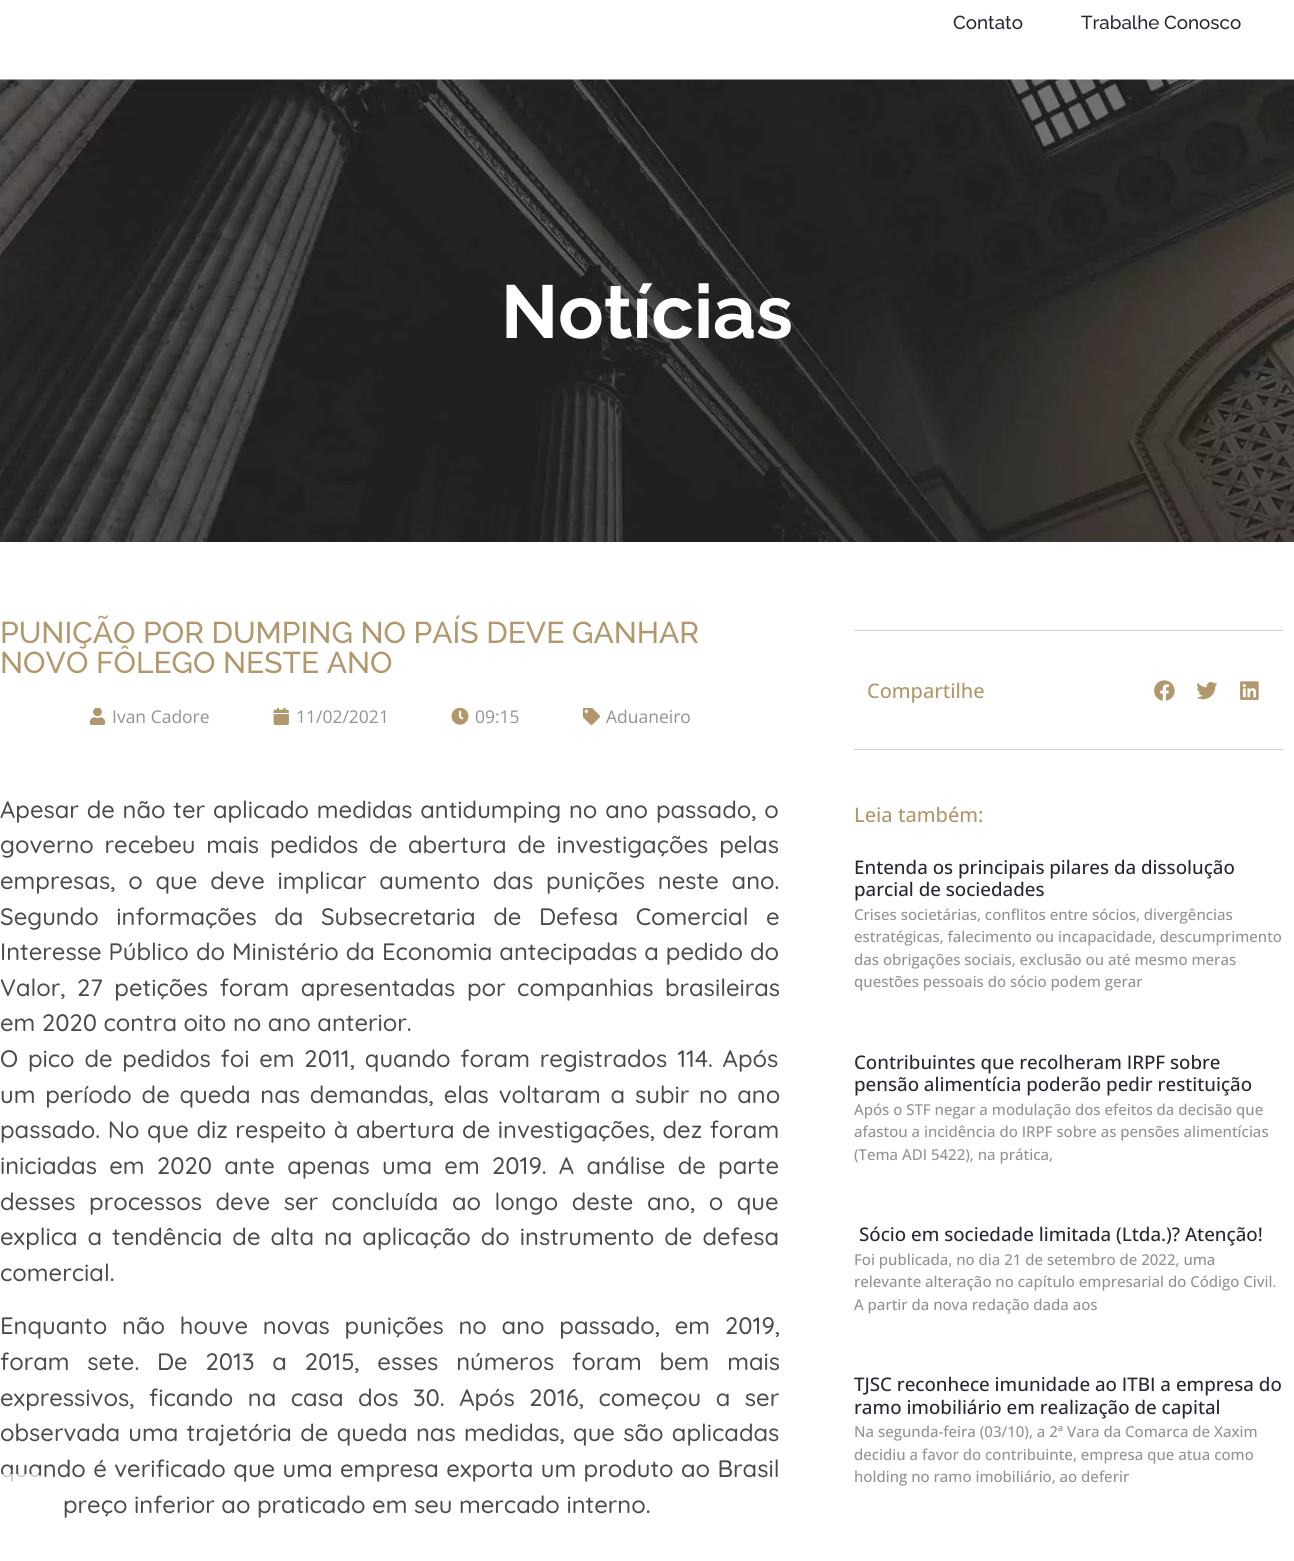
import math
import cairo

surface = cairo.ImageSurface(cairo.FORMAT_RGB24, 1294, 1561)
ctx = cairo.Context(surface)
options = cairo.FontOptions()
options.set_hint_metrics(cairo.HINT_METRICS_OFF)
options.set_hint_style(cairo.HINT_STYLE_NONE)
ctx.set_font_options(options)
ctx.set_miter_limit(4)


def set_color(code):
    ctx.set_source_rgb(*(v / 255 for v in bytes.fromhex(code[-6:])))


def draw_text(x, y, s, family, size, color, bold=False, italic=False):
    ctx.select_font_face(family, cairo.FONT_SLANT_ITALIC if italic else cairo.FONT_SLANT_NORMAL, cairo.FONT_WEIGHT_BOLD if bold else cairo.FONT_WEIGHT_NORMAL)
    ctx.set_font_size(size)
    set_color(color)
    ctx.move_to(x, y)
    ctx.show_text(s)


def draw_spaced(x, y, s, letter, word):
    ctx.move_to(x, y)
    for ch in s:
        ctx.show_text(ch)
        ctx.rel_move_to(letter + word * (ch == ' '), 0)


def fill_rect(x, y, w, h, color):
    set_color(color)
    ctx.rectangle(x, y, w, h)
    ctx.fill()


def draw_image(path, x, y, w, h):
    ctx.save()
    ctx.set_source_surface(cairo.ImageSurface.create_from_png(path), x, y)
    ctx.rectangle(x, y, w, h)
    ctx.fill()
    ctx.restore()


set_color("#ffffff")
ctx.paint()
draw_text(953, 29, "Contato", "Raleway Medium", 18.75, "#252833")
draw_text(1081, 29, "Trabalhe Conosco", "Raleway Medium", 18.75, "#252833")
draw_image("assets/img1.png", 0, 79, 1294, 463)
draw_text(501, 338, "Notícias", "Raleway", 75, "#ffffff", bold=True)
draw_text(0, 643, "PUNIÇÃO POR DUMPING NO PAÍS DEVE GANHAR", "Raleway Medium", 30, "#b1976b")
draw_text(0, 673, "NOVO FÔLEGO NESTE ANO", "Raleway Medium", 30, "#b1976b")
draw_image("assets/img2.png", 89, 708, 17, 17)
draw_text(112, 723, "Ivan Cadore", "Open Sans", 17.5, "#929292")
draw_image("assets/img3.png", 273, 708, 16, 17)
draw_text(296, 723, "11/02/2021", "Open Sans", 17.5, "#929292")
draw_image("assets/img4.png", 451, 708, 18, 17)
draw_text(475, 723, "09:15", "Open Sans", 17.5, "#929292")
draw_image("assets/img5.png", 583, 708, 17, 17)
draw_text(606, 723, "Aduaneiro", "Open Sans", 17.5, "#929292")
ctx.select_font_face("Quicksand Medium")
ctx.set_font_size(23.75)
set_color("#4a4a4a")
draw_spaced(0, 818, "Apesar de não ter aplicado medidas antidumping no ano passado, o", 0, 1.25)
draw_spaced(0, 853, "governo recebeu mais pedidos de abertura de investigações pelas", 0, 4.25)
draw_spaced(0, 889, "empresas, o que deve implicar aumento das punições neste ano.", 0, 6.25)
draw_spaced(0, 925, "Segundo informações da Subsecretaria de Defesa Comercial e", 0, 11)
draw_spaced(0, 960, "Interesse Público do Ministério da Economia antecipadas a pedido do", 0, 0.5)
draw_spaced(0, 996, "Valor, 27 petições foram apresentadas por companhias brasileiras", 0, 5)
draw_text(0, 1031, "em 2020 contra oito no ano anterior.", "Quicksand Medium", 23.75, "#4a4a4a")
draw_spaced(0, 1067, "O pico de pedidos foi em 2011, quando foram registrados 114. Após", 0, 3.25)
draw_spaced(0, 1103, "um período de queda nas demandas, elas voltaram a subir no ano", 0, 3.25)
draw_spaced(0, 1138, "passado. No que diz respeito à abertura de investigações, dez foram", 0, 1)
draw_spaced(0, 1174, "iniciadas em 2020 ante apenas uma em 2019. A análise de parte", 0, 5.75)
draw_spaced(0, 1210, "desses processos deve ser concluída ao longo deste ano, o que", 0, 7)
draw_spaced(0, 1245, "explica a tendência de alta na aplicação do instrumento de defesa", 0, 3.4)
draw_text(0, 1281, "comercial.", "Quicksand Medium", 23.75, "#4a4a4a")
draw_spaced(0, 1334, "Enquanto não houve novas punições no ano passado, em 2019,", 0, 8.25)
draw_spaced(0, 1370, "foram sete. De 2013 a 2015, esses números foram bem mais", 0, 11.25)
draw_spaced(0, 1406, "expressivos, ficando na casa dos 30. Após 2016, começou a ser", 0, 8)
draw_spaced(0, 1441, "observada uma trajetória de queda nas medidas, que são aplicadas", 0, 1.75)
draw_spaced(0, 1477, "quando é verificado que uma empresa exporta um produto ao Brasil", 0, 0.9)
draw_text(63, 1513, "preço inferior ao praticado em seu mercado interno.", "Quicksand Medium", 23.75, "#4a4a4a")
fill_rect(854, 630, 429, 1, "#d0d0d9")
fill_rect(854, 749, 429, 1, "#d0d0d9")
draw_text(867, 698, "Compartilhe", "Open Sans Medium", 20, "#b1976b")
draw_image("assets/img6.png", 1154, 680, 21, 21)
draw_image("assets/img7.png", 1196, 682, 22, 18)
draw_image("assets/img8.png", 1240, 681, 19, 19)
draw_text(854, 822, "Leia também:", "Open Sans Medium", 20, "#b1976b")
draw_text(854, 874, "Entenda os principais pilares da dissolução", "Open Sans Medium", 18.75, "#252833")
draw_text(854, 896, "parcial de sociedades", "Open Sans Medium", 18.75, "#252833")
draw_text(854, 920, "Crises societárias, conflitos entre sócios, divergências", "Open Sans Medium", 15, "#929292")
draw_text(854, 942, "estratégicas, falecimento ou incapacidade, descumprimento", "Open Sans Medium", 15, "#929292")
draw_text(854, 965, "das obrigações sociais, exclusão ou até mesmo meras", "Open Sans Medium", 15, "#929292")
draw_text(854, 987, "questões pessoais do sócio podem gerar", "Open Sans Medium", 15, "#929292")
draw_text(854, 1069, "Contribuintes que recolheram IRPF sobre", "Open Sans Medium", 18.75, "#252833")
draw_text(854, 1091, "pensão alimentícia poderão pedir restituição", "Open Sans Medium", 18.75, "#252833")
draw_text(854, 1115, "Após o STF negar a modulação dos efeitos da decisão que", "Open Sans Medium", 15, "#929292")
draw_text(854, 1137, "afastou a incidência do IRPF sobre as pensões alimentícias", "Open Sans Medium", 15, "#929292")
draw_text(854, 1160, "(Tema ADI 5422), na prática,", "Open Sans Medium", 15, "#929292")
draw_text(859, 1241, "Sócio em sociedade limitada (Ltda.)? Atenção!", "Open Sans Medium", 18.75, "#252833")
draw_text(854, 1265, "Foi publicada, no dia 21 de setembro de 2022, uma", "Open Sans Medium", 15, "#929292")
draw_text(854, 1287, "relevante alteração no capítulo empresarial do Código Civil.", "Open Sans Medium", 15, "#929292")
draw_text(854, 1310, "A partir da nova redação dada aos", "Open Sans Medium", 15, "#929292")
draw_text(854, 1391, "TJSC reconhece imunidade ao ITBI a empresa do", "Open Sans Medium", 18.75, "#252833")
draw_text(854, 1414, "ramo imobiliário em realização de capital", "Open Sans Medium", 18.75, "#252833")
draw_text(854, 1437, "Na segunda-feira (03/10), a 2ª Vara da Comarca de Xaxim", "Open Sans Medium", 15, "#929292")
draw_text(854, 1460, "decidiu a favor do contribuinte, empresa que atua como", "Open Sans Medium", 15, "#929292")
draw_text(854, 1482, "holding no ramo imobiliário, ao deferir", "Open Sans Medium", 15, "#929292")
ctx.set_source_rgba(1, 1, 1, 0.73)
ctx.new_path()
ctx.move_to(0, 1474)
ctx.line_to(32, 1474)
ctx.curve_to(49, 1474, 63, 1488, 63, 1505)
ctx.curve_to(63, 1522, 49, 1536, 32, 1536)
ctx.line_to(0, 1536)
ctx.close_path()
ctx.fill()
surface.write_to_png("output.png")
